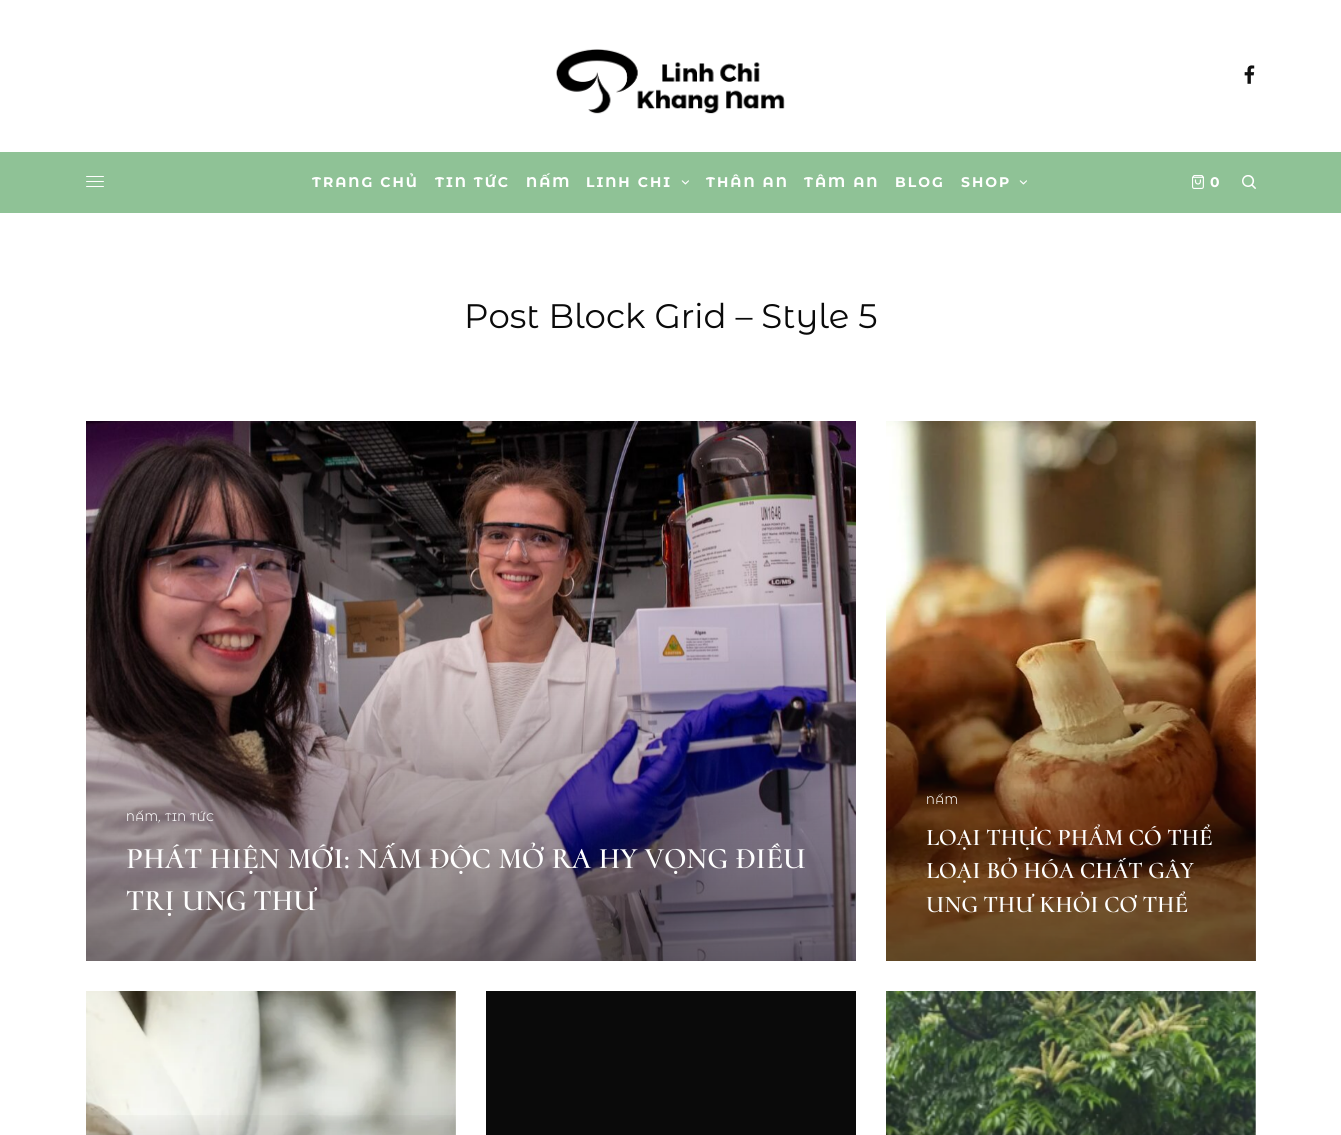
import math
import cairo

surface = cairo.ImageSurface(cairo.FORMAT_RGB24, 1341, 1135)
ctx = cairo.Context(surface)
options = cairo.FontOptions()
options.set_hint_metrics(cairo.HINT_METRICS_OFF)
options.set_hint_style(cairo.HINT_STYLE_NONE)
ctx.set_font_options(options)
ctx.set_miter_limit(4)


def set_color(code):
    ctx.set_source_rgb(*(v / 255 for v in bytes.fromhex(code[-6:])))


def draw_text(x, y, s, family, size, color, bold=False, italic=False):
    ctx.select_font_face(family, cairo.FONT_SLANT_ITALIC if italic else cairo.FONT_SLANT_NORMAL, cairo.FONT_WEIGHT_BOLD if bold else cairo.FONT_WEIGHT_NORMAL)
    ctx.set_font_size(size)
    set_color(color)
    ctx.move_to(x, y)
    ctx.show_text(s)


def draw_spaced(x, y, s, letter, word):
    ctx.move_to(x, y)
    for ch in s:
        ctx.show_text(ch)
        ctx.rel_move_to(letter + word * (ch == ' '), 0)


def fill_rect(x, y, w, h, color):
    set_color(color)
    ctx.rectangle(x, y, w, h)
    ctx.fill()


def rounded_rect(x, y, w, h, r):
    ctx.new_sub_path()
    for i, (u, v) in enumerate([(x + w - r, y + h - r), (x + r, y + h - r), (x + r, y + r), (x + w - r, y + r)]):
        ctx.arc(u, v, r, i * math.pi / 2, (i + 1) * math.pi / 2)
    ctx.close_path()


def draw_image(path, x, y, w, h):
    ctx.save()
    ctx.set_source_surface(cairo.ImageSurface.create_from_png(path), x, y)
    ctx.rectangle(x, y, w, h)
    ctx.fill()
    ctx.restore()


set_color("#ffffff")
ctx.paint()
draw_image("assets/img1.png", 556, 49, 229, 65)
draw_image("assets/img2.png", 1244, 65, 11, 19)
fill_rect(0, 152, 1341, 61, "#8fc296")
set_color("#ffffff")
rounded_rect(86, 176, 18, 1, 0.5)
ctx.fill()
rounded_rect(86, 181, 18, 1, 0.5)
ctx.fill()
rounded_rect(86, 186, 18, 1, 0.5)
ctx.fill()
ctx.select_font_face("Montserrat Alternates", cairo.FONT_SLANT_NORMAL, cairo.FONT_WEIGHT_BOLD)
ctx.set_font_size(14)
draw_spaced(312, 187, "TRANG CHỦ", 2, 0)
draw_spaced(435, 187, "TIN TỨC", 2, 0)
draw_spaced(526, 187, "NẤM", 2, 0)
draw_spaced(586, 187, "LINH CHI", 2, 0)
draw_image("assets/img3.png", 681, 180, 8, 5)
draw_spaced(706, 187, "THÂN AN", 2, 0)
draw_spaced(804, 187, "TÂM AN", 2, 0)
draw_spaced(895, 187, "BLOG", 2, 0)
draw_spaced(961, 187, "SHOP", 2, 0)
draw_image("assets/img3.png", 1019, 180, 8, 5)
draw_image("assets/img4.png", 1192, 175, 12, 14)
draw_spaced(1210, 187, "0", 2, 0)
draw_image("assets/img5.png", 1242, 175, 14, 14)
draw_text(464, 328, "Post Block Grid – Style 5", "Montserrat Alternates", 34, "#0a0a0a")
draw_image("assets/img6.png", 86, 421, 770, 540)
ctx.set_font_size(11)
set_color("#ffffff")
draw_spaced(126, 821, "NẤM", 0.5, 0)
ctx.select_font_face("Montserrat Alternates", cairo.FONT_SLANT_ITALIC)
draw_spaced(158, 821, ",", 0.5, 0)
ctx.select_font_face("Montserrat Alternates")
draw_spaced(165, 821, "TIN TỨC", 0.5, 0)
ctx.select_font_face("Cormorant Upright SemiBold")
ctx.set_font_size(30)
draw_spaced(126, 868, "PHÁT HIỆN MỚI: NẤM ĐỘC MỞ RA HY VỌNG ĐIỀU", 0, 0.25)
draw_text(126, 910, "TRỊ UNG THƯ", "Cormorant Upright SemiBold", 30, "#ffffff")
draw_image("assets/img7.png", 886, 421, 370, 540)
gradient = cairo.LinearGradient(1071, 421, 1071, 961)
gradient.add_color_stop_rgba(0.4, 0.039, 0.039, 0.039, 0)
gradient.add_color_stop_rgba(1, 0.039, 0.039, 0.039, 0.5)
ctx.set_source(gradient)
ctx.rectangle(886, 651, 370, 310)
ctx.fill()
ctx.select_font_face("Montserrat Alternates")
ctx.set_font_size(11)
set_color("#ffffff")
draw_spaced(926, 804, "NẤM", 0.5, 0)
draw_text(926, 845, "LOẠI THỰC PHẨM CÓ THỂ", "Cormorant Upright SemiBold", 24, "#ffffff")
draw_text(926, 878, "LOẠI BỎ HÓA CHẤT GÂY", "Cormorant Upright SemiBold", 24, "#ffffff")
draw_text(926, 912, "UNG THƯ KHỎI CƠ THỂ", "Cormorant Upright SemiBold", 24, "#ffffff")
draw_image("assets/img8.png", 86, 991, 370, 144)
gradient = cairo.LinearGradient(271, 991, 271, 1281)
gradient.add_color_stop_rgba(0.4, 0.039, 0.039, 0.039, 0)
gradient.add_color_stop_rgba(1, 0.039, 0.039, 0.039, 0.5)
ctx.set_source(gradient)
ctx.rectangle(86, 1115, 370, 20)
ctx.fill()
fill_rect(486, 991, 370, 144, "#0a0a0a")
draw_image("assets/img9.png", 886, 991, 370, 144)
gradient = cairo.LinearGradient(1071, 991, 1071, 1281)
gradient.add_color_stop_rgba(0.4, 0.039, 0.039, 0.039, 0)
gradient.add_color_stop_rgba(1, 0.039, 0.039, 0.039, 0.5)
ctx.set_source(gradient)
ctx.rectangle(886, 1115, 370, 20)
ctx.fill()
surface.write_to_png("output.png")
